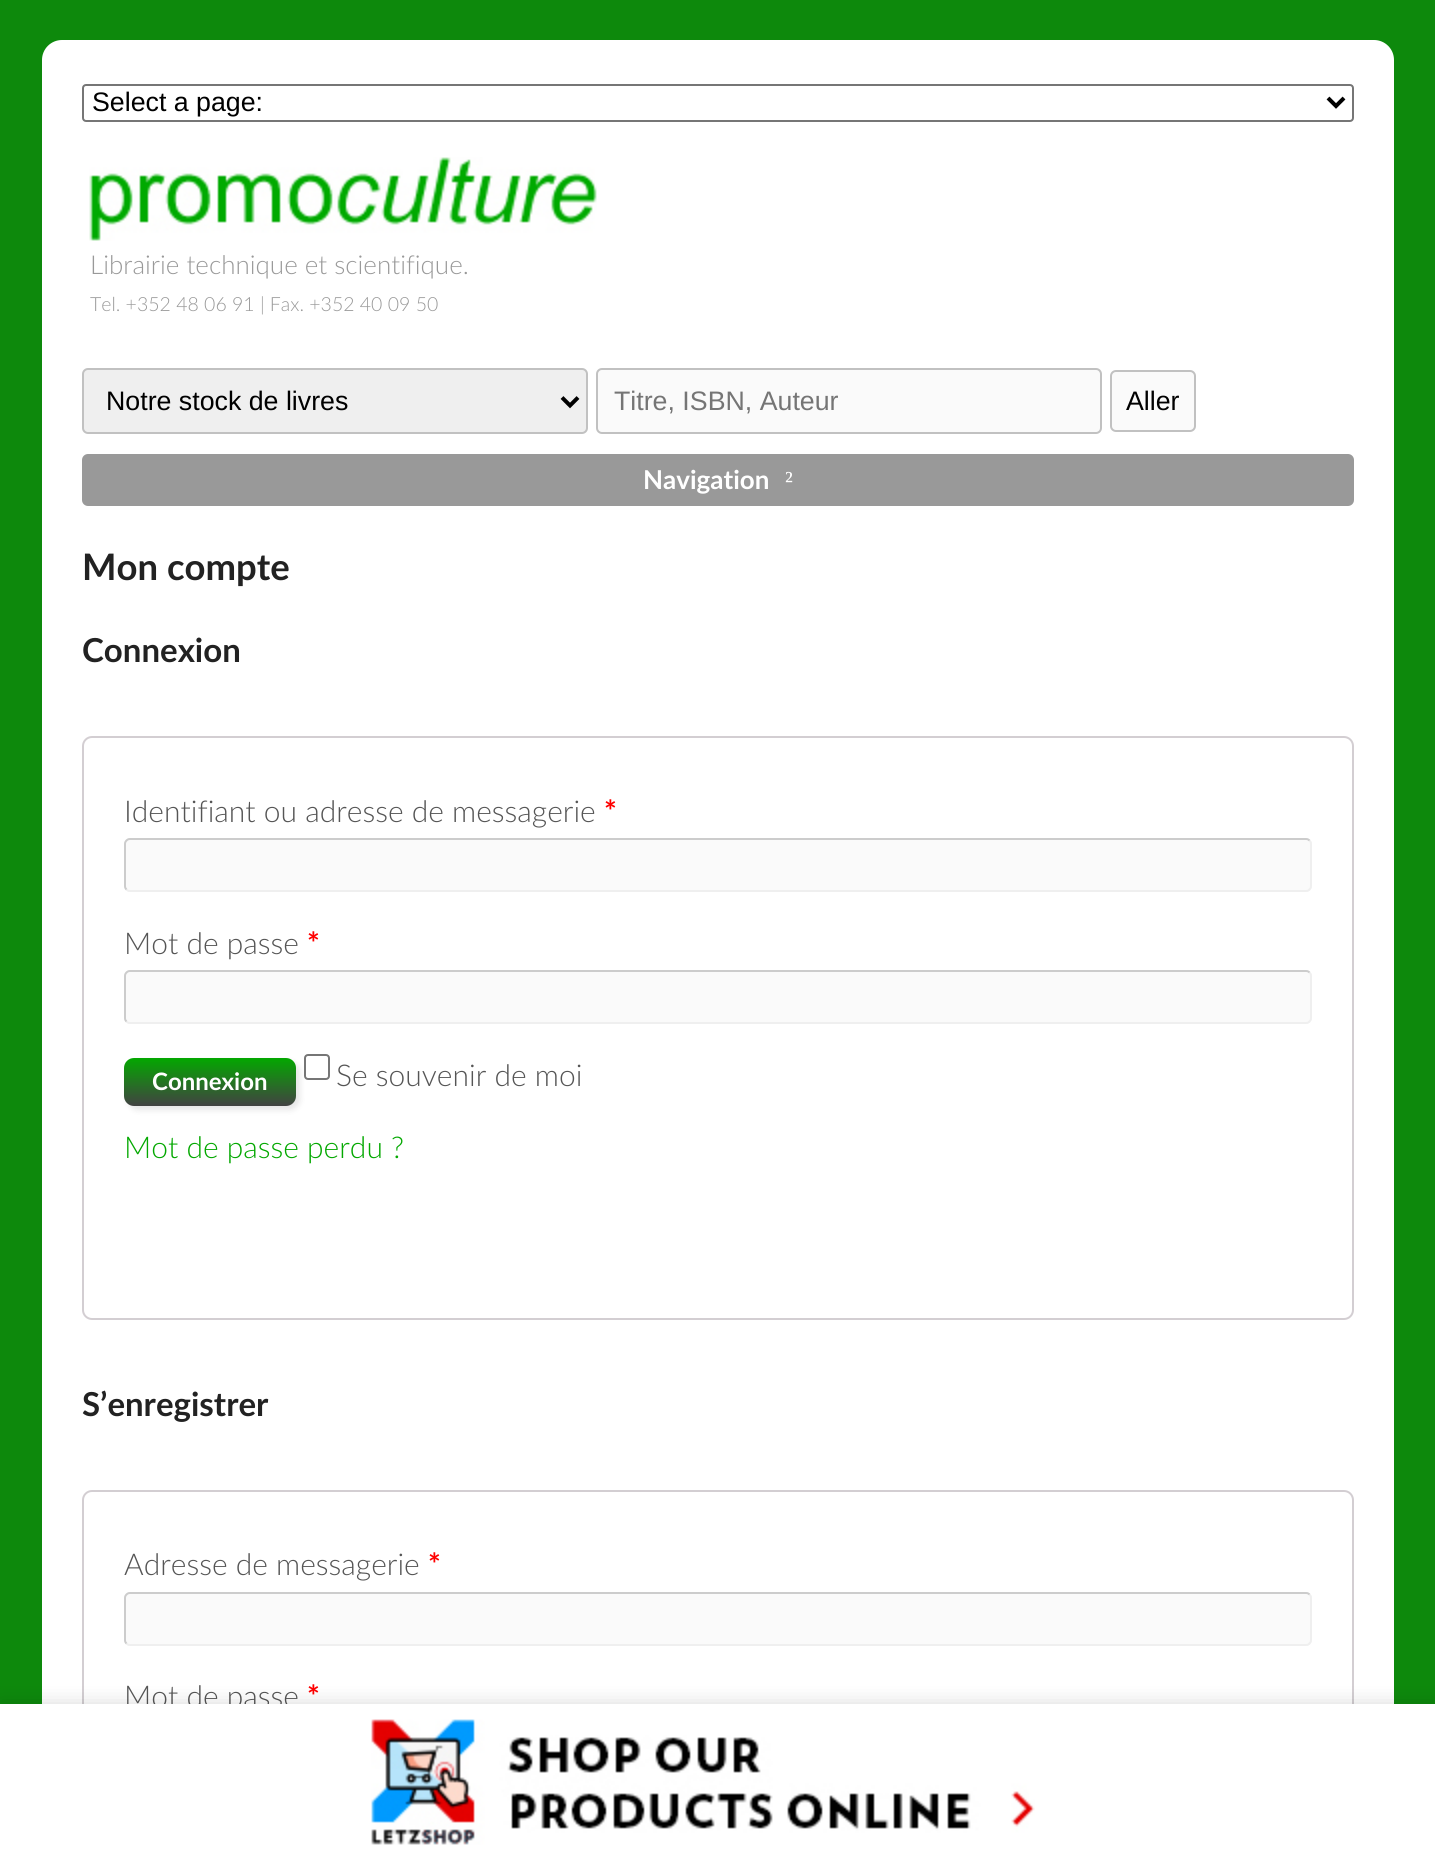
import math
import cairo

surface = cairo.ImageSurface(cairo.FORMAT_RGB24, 1435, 1859)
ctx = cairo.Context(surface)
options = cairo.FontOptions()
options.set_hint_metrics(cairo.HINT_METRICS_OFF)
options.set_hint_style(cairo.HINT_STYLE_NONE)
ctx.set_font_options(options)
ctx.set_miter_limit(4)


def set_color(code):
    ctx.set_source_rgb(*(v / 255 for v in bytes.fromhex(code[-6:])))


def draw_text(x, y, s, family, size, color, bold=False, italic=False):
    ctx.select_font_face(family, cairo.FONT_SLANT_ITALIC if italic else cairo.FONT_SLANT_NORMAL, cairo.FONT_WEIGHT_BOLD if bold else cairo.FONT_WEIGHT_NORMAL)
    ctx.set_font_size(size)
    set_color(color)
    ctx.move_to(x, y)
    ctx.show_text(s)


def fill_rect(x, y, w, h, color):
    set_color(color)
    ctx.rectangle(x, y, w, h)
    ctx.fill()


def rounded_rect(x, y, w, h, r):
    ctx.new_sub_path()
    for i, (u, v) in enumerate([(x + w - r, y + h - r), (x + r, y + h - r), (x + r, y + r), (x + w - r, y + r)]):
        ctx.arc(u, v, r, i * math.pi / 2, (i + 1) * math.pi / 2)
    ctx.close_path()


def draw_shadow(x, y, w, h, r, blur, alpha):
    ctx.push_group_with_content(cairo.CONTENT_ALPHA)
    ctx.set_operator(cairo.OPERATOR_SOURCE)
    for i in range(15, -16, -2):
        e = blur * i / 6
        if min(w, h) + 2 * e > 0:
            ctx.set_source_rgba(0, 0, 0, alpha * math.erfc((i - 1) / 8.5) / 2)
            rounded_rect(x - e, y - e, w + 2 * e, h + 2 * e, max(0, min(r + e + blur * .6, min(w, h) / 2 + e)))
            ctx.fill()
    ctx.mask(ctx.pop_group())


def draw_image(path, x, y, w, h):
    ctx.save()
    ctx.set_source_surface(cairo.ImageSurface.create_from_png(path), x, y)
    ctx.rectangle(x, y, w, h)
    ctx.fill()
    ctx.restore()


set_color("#0d890c")
ctx.paint()
set_color("#ffffff")
rounded_rect(42, 40, 1352, 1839, 20)
ctx.fill()
rounded_rect(83, 85, 1270, 36, 3)
set_color("#767676")
ctx.stroke()
ctx.new_path()
ctx.move_to(1328, 98)
ctx.line_to(1336, 106)
ctx.line_to(1344, 98)
set_color("#000000")
ctx.set_line_width(4)
ctx.stroke()
draw_text(92, 111, "Select a page:", "Liberation Sans", 26.75, "#000000")
draw_image("assets/img1.png", 89, 157, 508, 84)
draw_text(90, 274, "Librairie technique et scientifique.", "Lato Light", 26, "#999999")
draw_text(90, 311, "Tel. +352 48 06 91 | Fax. +352 40 09 50", "Lato Light", 19.5, "#999999")
set_color("#efefef")
rounded_rect(83, 369, 504, 64, 5)
ctx.fill_preserve()
set_color("#c1c1c1")
ctx.set_line_width(2)
ctx.stroke()
ctx.new_path()
ctx.move_to(562, 397.5)
ctx.line_to(570, 405.5)
ctx.line_to(578, 397.5)
set_color("#000000")
ctx.set_line_width(4)
ctx.stroke()
draw_text(106, 410, "Notre stock de livres", "Liberation Sans", 26.75, "#000000")
set_color("#fafafa")
rounded_rect(597, 369, 504, 64, 5)
ctx.fill_preserve()
set_color("#c1c1c1")
ctx.set_line_width(2)
ctx.stroke()
draw_text(614, 410, "Titre, ISBN, Auteur", "Liberation Sans", 26.75, "#757575")
set_color("#fafafa")
rounded_rect(1111, 371, 84, 60, 5)
ctx.fill_preserve()
set_color("#c1c1c1")
ctx.stroke()
draw_text(1126, 410, "Aller", "Liberation Sans", 26.75, "#000000")
set_color("#999999")
rounded_rect(82, 454, 1272, 52, 6)
ctx.fill()
draw_text(643, 489, "Navigation", "Lato", 26, "#ffffff", bold=True)
draw_text(785, 489, "²", "Liberation Serif", 26, "#ffffff")
draw_text(82, 580, "Mon compte", "Lato", 36.5, "#222222", bold=True)
draw_text(82, 662, "Connexion", "Lato", 33, "#222222", bold=True)
rounded_rect(83, 737, 1270, 582, 9)
set_color("#d3ced2")
ctx.stroke()
draw_text(124, 822, "Identifiant ou adresse de messagerie", "Lato Light", 30, "#555555")
draw_text(604, 822, "*", "Lato", 30, "#ff0000", bold=True)
set_color("#fafafa")
rounded_rect(124, 838, 1188, 54, 6)
ctx.fill()
ctx.new_path()
ctx.move_to(1309.5, 840.5)
ctx.curve_to(1310.5, 841.5, 1311, 842.5, 1311, 844)
ctx.line_to(1311, 886)
ctx.curve_to(1311, 887.5, 1310.5, 888.5, 1309.5, 889.5)
ctx.curve_to(1308.5, 890.5, 1307.5, 891, 1306, 891)
ctx.line_to(130, 891)
ctx.curve_to(128.5, 891, 127.5, 890.5, 126.5, 889.5)
set_color("#efefef")
ctx.stroke()
ctx.new_path()
ctx.move_to(126.5, 889.5)
ctx.curve_to(125.5, 888.5, 125, 887.5, 125, 886)
ctx.line_to(125, 844)
ctx.curve_to(125, 842.5, 125.5, 841.5, 126.5, 840.5)
ctx.curve_to(127.5, 839.5, 128.5, 839, 130, 839)
ctx.line_to(1306, 839)
ctx.curve_to(1307.5, 839, 1308.5, 839.5, 1309.5, 840.5)
set_color("#cccccc")
ctx.stroke()
draw_text(124, 954, "Mot de passe", "Lato Light", 30, "#555555")
draw_text(307, 954, "*", "Lato", 30, "#ff0000", bold=True)
set_color("#fafafa")
rounded_rect(124, 970, 1188, 54, 6)
ctx.fill()
ctx.new_path()
ctx.move_to(1309.5, 972.5)
ctx.curve_to(1310.5, 973.5, 1311, 974.5, 1311, 976)
ctx.line_to(1311, 1018)
ctx.curve_to(1311, 1019.5, 1310.5, 1020.5, 1309.5, 1021.5)
ctx.curve_to(1308.5, 1022.5, 1307.5, 1023, 1306, 1023)
ctx.line_to(130, 1023)
ctx.curve_to(128.5, 1023, 127.5, 1022.5, 126.5, 1021.5)
set_color("#efefef")
ctx.stroke()
ctx.new_path()
ctx.move_to(126.5, 1021.5)
ctx.curve_to(125.5, 1020.5, 125, 1019.5, 125, 1018)
ctx.line_to(125, 976)
ctx.curve_to(125, 974.5, 125.5, 973.5, 126.5, 972.5)
ctx.curve_to(127.5, 971.5, 128.5, 971, 130, 971)
ctx.line_to(1306, 971)
ctx.curve_to(1307.5, 971, 1308.5, 971.5, 1309.5, 972.5)
set_color("#cccccc")
ctx.stroke()
rounded_rect(305, 1055, 24, 24, 3)
set_color("#767676")
ctx.stroke()
set_color("#000000")
draw_shadow(128, 1062, 172, 48, 10, 3, 0.1)
gradient = cairo.LinearGradient(210, 1058, 210, 1106)
gradient.add_color_stop_rgba(0, 0.012, 0.659, 0, 1)
gradient.add_color_stop_rgba(1, 0.259, 0.259, 0.259, 1)
ctx.set_source(gradient)
rounded_rect(124, 1058, 172, 48, 10)
ctx.fill()
draw_text(152, 1090, "Connexion", "Lato", 24, "#ffffff", bold=True)
draw_text(336, 1086, "Se souvenir de moi", "Lato Light", 30, "#555555")
draw_text(124, 1158, "Mot de passe perdu ?", "Lato Light", 30, "#03a800")
draw_text(82, 1416, "S’enregistrer", "Lato", 33, "#222222", bold=True)
rounded_rect(83, 1491, 1270, 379, 9)
set_color("#d3ced2")
ctx.stroke()
draw_text(124, 1575, "Adresse de messagerie", "Lato Light", 30, "#555555")
draw_text(428, 1575, "*", "Lato", 30, "#ff0000", bold=True)
set_color("#fafafa")
rounded_rect(124, 1592, 1188, 54, 6)
ctx.fill()
ctx.new_path()
ctx.move_to(1309.5, 1594.5)
ctx.curve_to(1310.5, 1595.5, 1311, 1596.5, 1311, 1598)
ctx.line_to(1311, 1640)
ctx.curve_to(1311, 1641.5, 1310.5, 1642.5, 1309.5, 1643.5)
ctx.curve_to(1308.5, 1644.5, 1307.5, 1645, 1306, 1645)
ctx.line_to(130, 1645)
ctx.curve_to(128.5, 1645, 127.5, 1644.5, 126.5, 1643.5)
set_color("#efefef")
ctx.stroke()
ctx.new_path()
ctx.move_to(126.5, 1643.5)
ctx.curve_to(125.5, 1642.5, 125, 1641.5, 125, 1640)
ctx.line_to(125, 1598)
ctx.curve_to(125, 1596.5, 125.5, 1595.5, 126.5, 1594.5)
ctx.curve_to(127.5, 1593.5, 128.5, 1593, 130, 1593)
ctx.line_to(1306, 1593)
ctx.curve_to(1307.5, 1593, 1308.5, 1593.5, 1309.5, 1594.5)
set_color("#cccccc")
ctx.stroke()
draw_text(124, 1707, "Mot de passe", "Lato Light", 30, "#555555")
draw_text(307, 1707, "*", "Lato", 30, "#ff0000", bold=True)
set_color("#000000")
draw_shadow(0, 1704, 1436, 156, 0, 10, 0.15)
fill_rect(0, 1704, 1435, 155, "#ffffff")
draw_image("assets/img2.png", 371, 1719, 664, 126)
surface.write_to_png("output.png")
